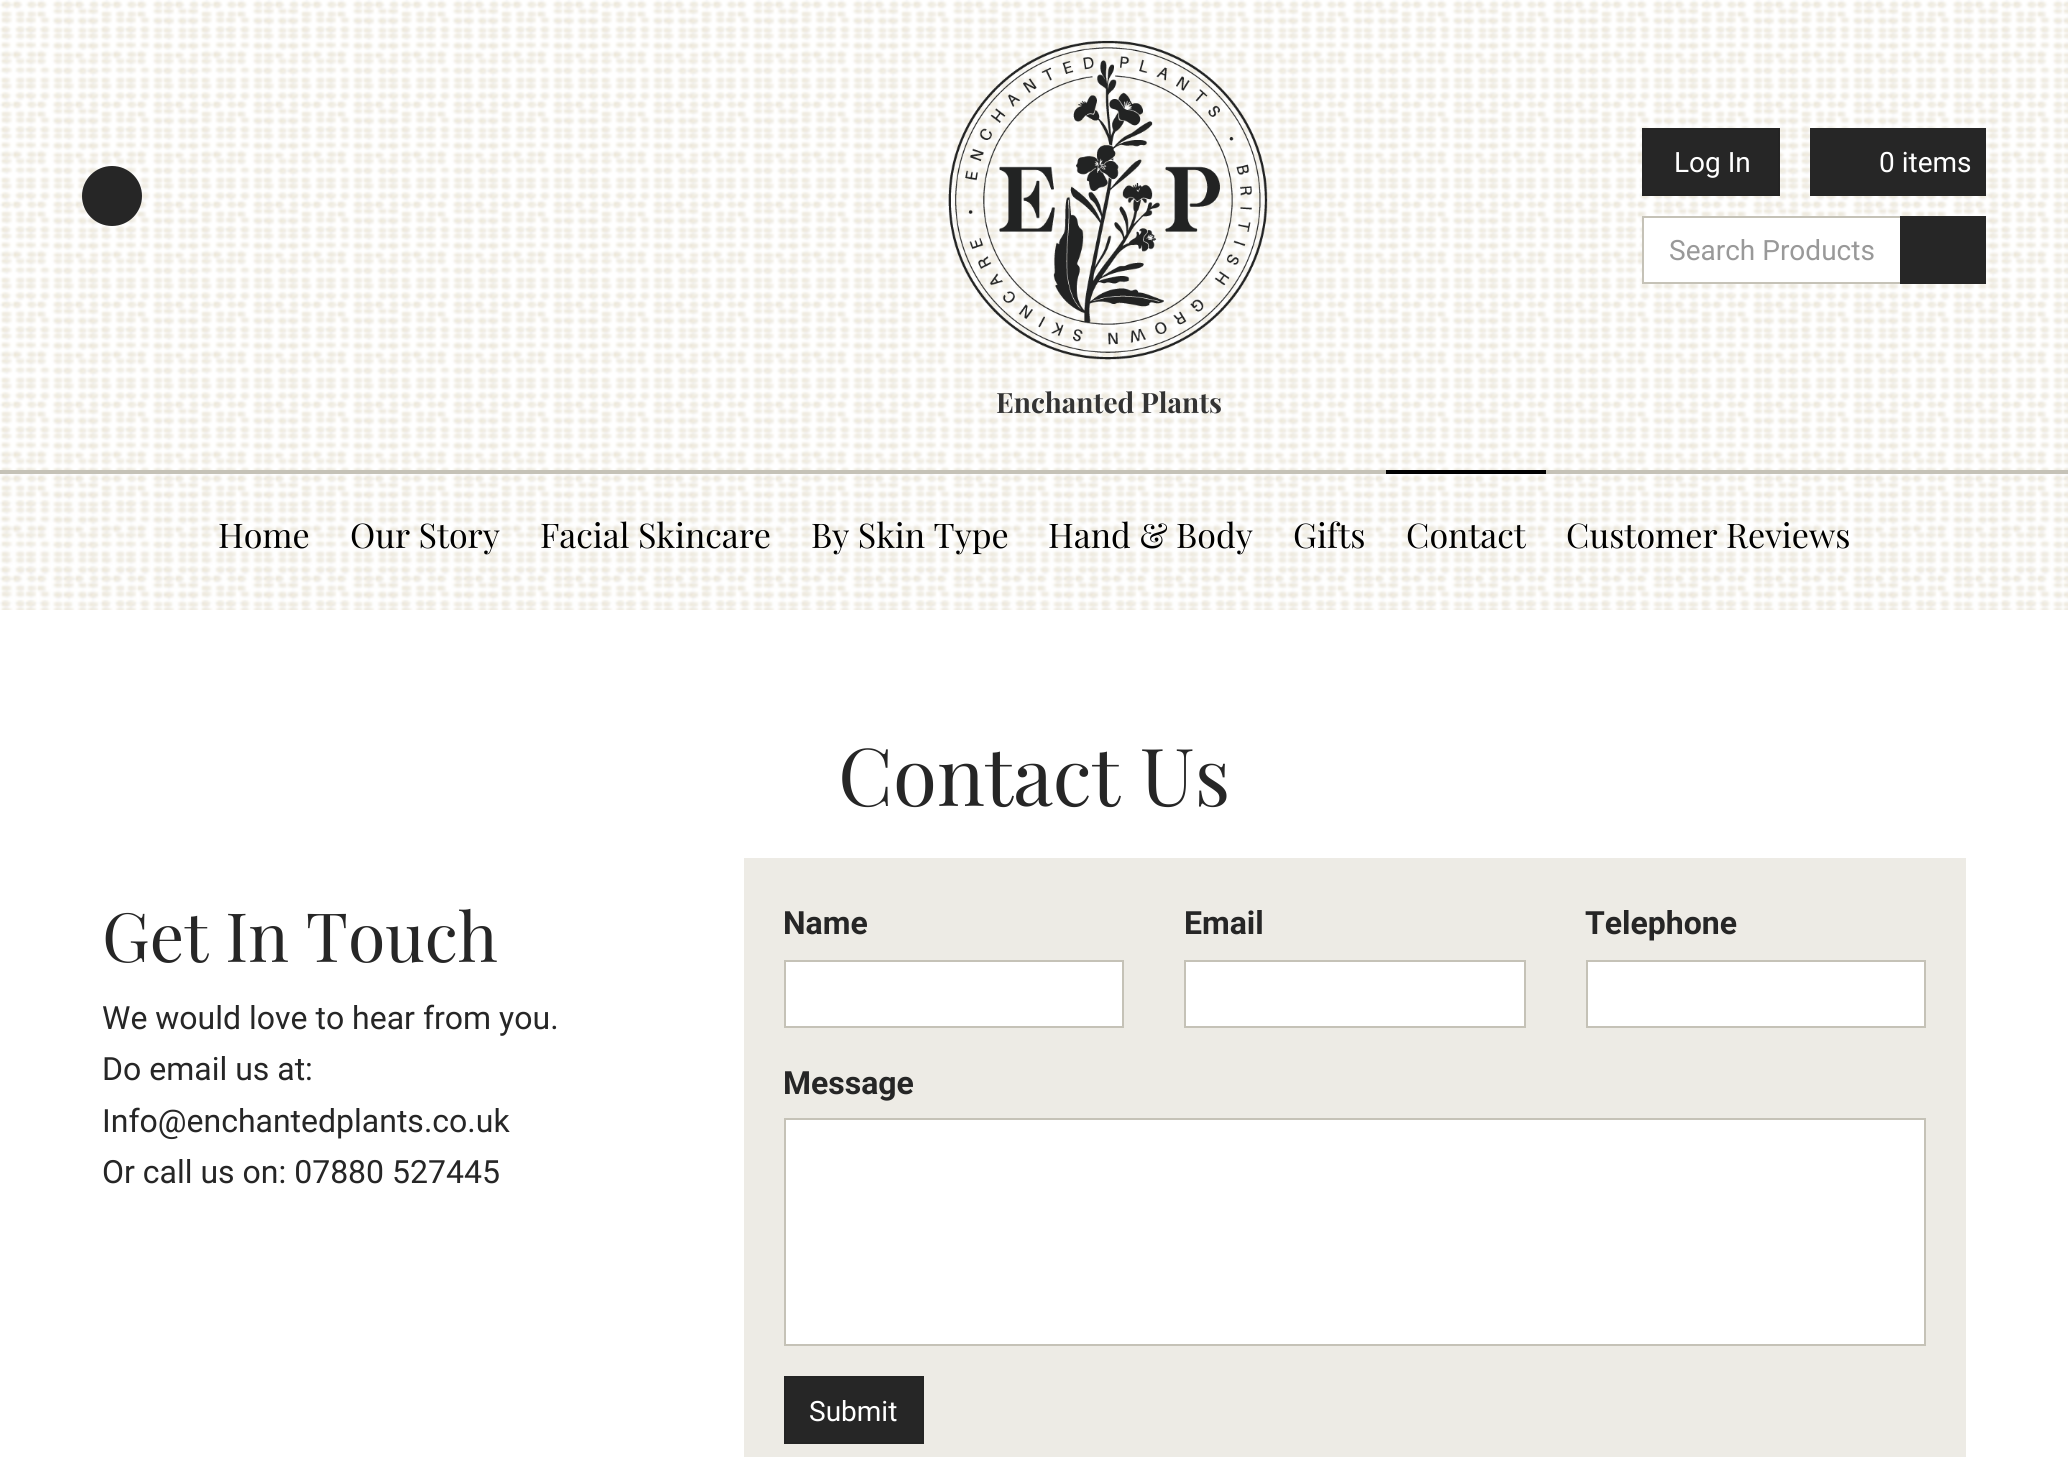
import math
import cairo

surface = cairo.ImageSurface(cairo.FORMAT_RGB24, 2068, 1457)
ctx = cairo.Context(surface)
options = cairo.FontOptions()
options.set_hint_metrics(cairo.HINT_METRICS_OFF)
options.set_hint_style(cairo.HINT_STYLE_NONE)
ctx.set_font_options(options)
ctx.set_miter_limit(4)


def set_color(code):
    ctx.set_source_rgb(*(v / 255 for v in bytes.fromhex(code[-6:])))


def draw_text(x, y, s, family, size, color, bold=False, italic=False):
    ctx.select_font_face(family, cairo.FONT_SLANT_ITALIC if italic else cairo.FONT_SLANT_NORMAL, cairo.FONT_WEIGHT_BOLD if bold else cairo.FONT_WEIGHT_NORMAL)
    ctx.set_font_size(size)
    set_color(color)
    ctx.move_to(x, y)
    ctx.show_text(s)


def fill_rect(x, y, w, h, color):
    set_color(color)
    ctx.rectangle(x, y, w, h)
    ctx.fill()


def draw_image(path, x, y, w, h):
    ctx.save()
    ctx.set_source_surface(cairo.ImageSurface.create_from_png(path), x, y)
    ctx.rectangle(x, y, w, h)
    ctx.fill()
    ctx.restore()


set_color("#ffffff")
ctx.paint()
draw_image("assets/img1.png", 0, 0, 2068, 470)
set_color("#262626")
ctx.arc(112, 196, 29, 0, 2 * math.pi)
ctx.fill_preserve()
ctx.stroke()
ctx.rectangle(1643, 129, 136, 66)
ctx.fill_preserve()
set_color("#242424")
ctx.stroke()
draw_text(1674, 172, "Log In", "Roboto", 28, "#ffffff")
fill_rect(1810, 128, 176, 68, "#262626")
draw_text(1879, 172, "0 items", "Roboto", 28, "#ffffff")
ctx.rectangle(1643, 217, 258, 66)
ctx.fill_preserve()
set_color("#c5c2b7")
ctx.stroke()
draw_text(1669, 260, "Search Products", "Roboto", 28, "#999999")
fill_rect(1900, 216, 86, 68, "#262626")
draw_image("assets/img2.png", 948, 40, 320, 320)
draw_text(996, 413, "Enchanted Plants", "Playfair Display", 28, "#333333", bold=True)
draw_image("assets/img3.png", 0, 474, 2068, 136)
fill_rect(0, 470, 2068, 4, "#c5c2b7")
draw_text(218, 548, "Home", "Playfair Display", 34, "#000000")
draw_text(350, 548, "Our Story", "Playfair Display", 34, "#000000")
draw_text(540, 548, "Facial Skincare", "Playfair Display", 34, "#000000")
draw_text(811, 548, "By Skin Type", "Playfair Display", 34, "#000000")
draw_text(1048, 548, "Hand & Body", "Playfair Display", 34, "#000000")
draw_text(1293, 548, "Gifts", "Playfair Display", 34, "#000000")
fill_rect(1386, 470, 160, 4, "#000000")
draw_text(1406, 548, "Contact", "Playfair Display", 34, "#000000")
draw_text(1566, 548, "Customer Reviews", "Playfair Display", 34, "#000000")
draw_text(838, 806, "Contact Us", "Playfair Display", 80, "#262626")
draw_text(102, 962, "Get In Touch", "Playfair Display", 68, "#262626")
draw_text(102, 1029, "We would love to hear from you.", "Roboto", 32, "#262626")
draw_text(102, 1080, "Do email us at:", "Roboto", 32, "#262626")
draw_text(102, 1132, "Info@enchantedplants.co.uk", "Roboto", 32, "#262626")
draw_text(102, 1183, "Or call us on: 07880 527445", "Roboto", 32, "#262626")
fill_rect(744, 858, 1222, 599, "#edebe5")
draw_text(783, 934, "Name", "Roboto", 32, "#262626", bold=True)
set_color("#ffffff")
ctx.rectangle(785, 961, 338, 66)
ctx.fill_preserve()
set_color("#c5c2b7")
ctx.stroke()
draw_text(1184, 934, "Email", "Roboto", 32, "#262626", bold=True)
set_color("#ffffff")
ctx.rectangle(1185, 961, 340, 66)
ctx.fill_preserve()
set_color("#c5c2b7")
ctx.stroke()
draw_text(1585, 934, "Telephone", "Roboto", 32, "#262626", bold=True)
set_color("#ffffff")
ctx.rectangle(1587, 961, 338, 66)
ctx.fill_preserve()
set_color("#c5c2b7")
ctx.stroke()
draw_text(783, 1094, "Message", "Roboto", 32, "#262626", bold=True)
set_color("#ffffff")
ctx.rectangle(785, 1119, 1140, 226)
ctx.fill_preserve()
set_color("#c5c2b7")
ctx.stroke()
set_color("#262626")
ctx.rectangle(785, 1377, 138, 66)
ctx.fill_preserve()
set_color("#242424")
ctx.stroke()
draw_text(809, 1421, "Submit", "Roboto", 28, "#ffffff")
surface.write_to_png("output.png")
